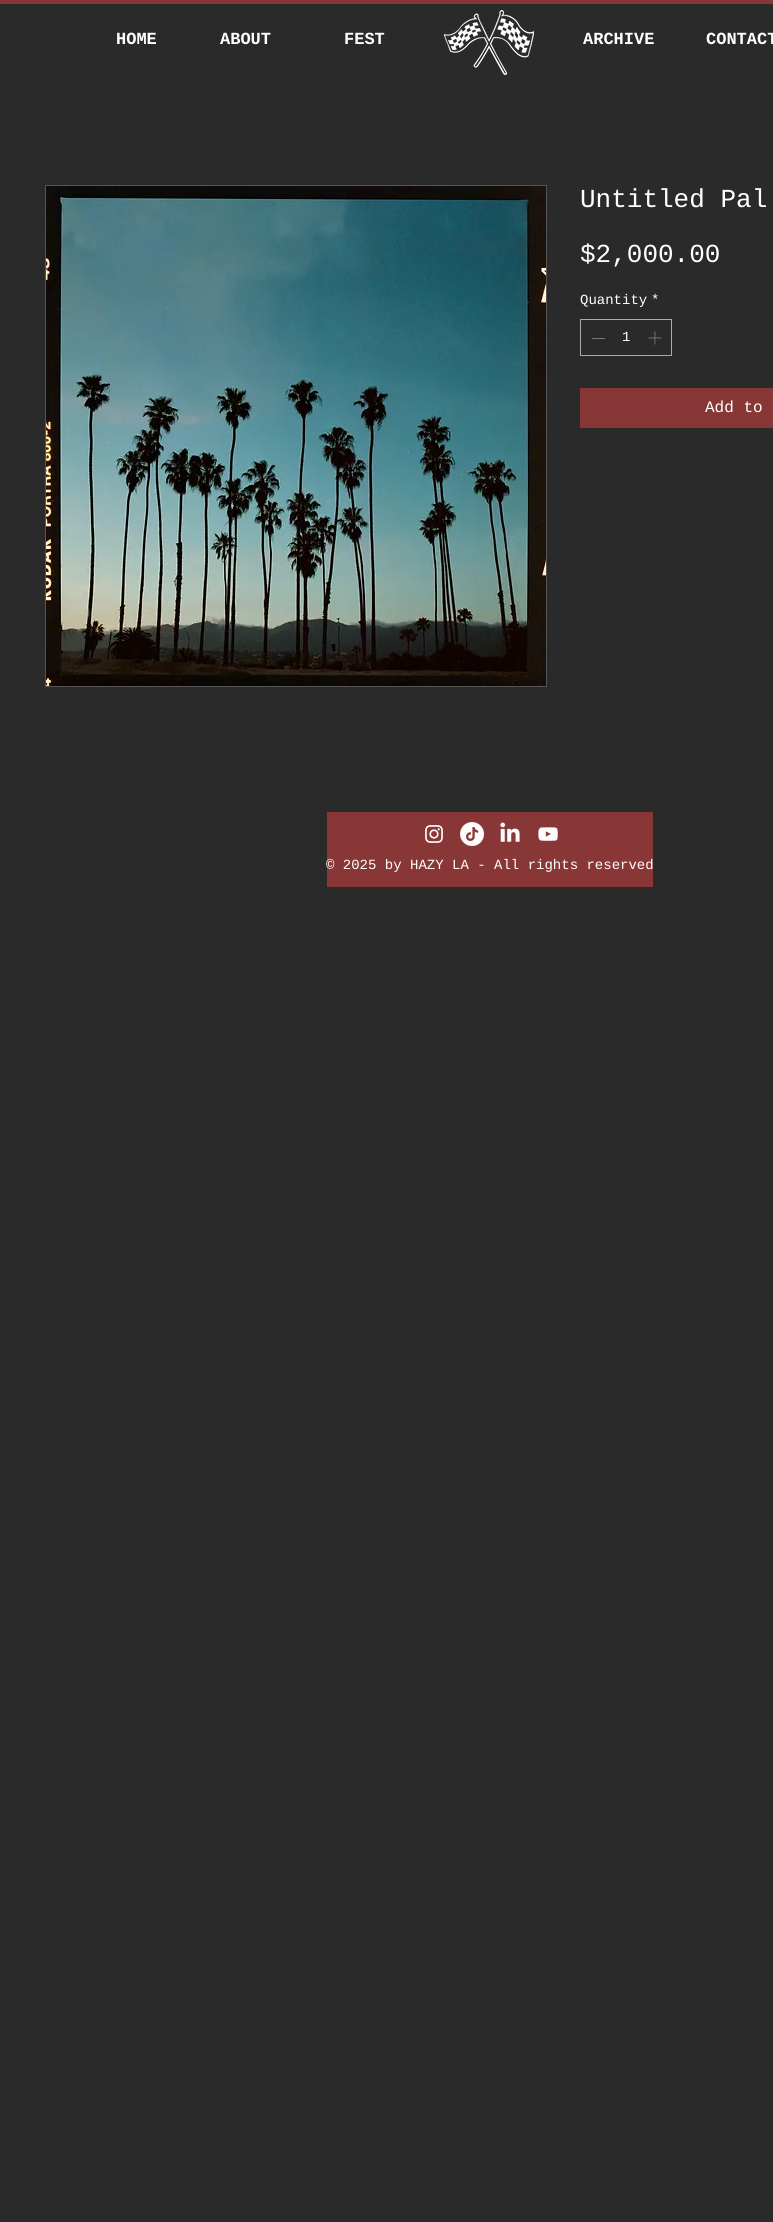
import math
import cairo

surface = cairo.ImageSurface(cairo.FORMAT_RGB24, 773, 2222)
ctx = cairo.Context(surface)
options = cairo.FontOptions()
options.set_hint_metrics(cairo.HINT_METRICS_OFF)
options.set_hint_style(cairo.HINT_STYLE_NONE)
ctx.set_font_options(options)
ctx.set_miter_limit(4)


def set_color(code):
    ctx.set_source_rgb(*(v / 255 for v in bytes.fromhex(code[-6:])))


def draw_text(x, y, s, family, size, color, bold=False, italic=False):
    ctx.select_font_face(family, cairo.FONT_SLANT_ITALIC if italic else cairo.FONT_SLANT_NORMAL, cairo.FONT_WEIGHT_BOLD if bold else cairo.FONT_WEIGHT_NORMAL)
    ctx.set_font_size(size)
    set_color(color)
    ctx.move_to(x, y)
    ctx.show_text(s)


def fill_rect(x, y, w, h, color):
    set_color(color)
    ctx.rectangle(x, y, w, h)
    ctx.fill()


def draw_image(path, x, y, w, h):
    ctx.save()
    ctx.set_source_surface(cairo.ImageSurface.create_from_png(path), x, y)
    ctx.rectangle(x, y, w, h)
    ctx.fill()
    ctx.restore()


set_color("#2a2a2a")
ctx.paint()
fill_rect(0, 0, 773, 4, "#883736")
draw_text(116, 44, "HOME", "Liberation Mono", 17, "#ffffff", bold=True)
draw_text(220, 44, "ABOUT", "Liberation Mono", 17, "#ffffff", bold=True)
draw_text(344, 44, "FEST", "Liberation Mono", 17, "#ffffff", bold=True)
draw_image("assets/img1.png", 444, 10, 90, 65)
draw_text(583, 44, "ARCHIVE", "Liberation Mono", 17, "#ffffff", bold=True)
draw_text(706, 44, "CONTACT", "Liberation Mono", 17, "#ffffff", bold=True)
ctx.rectangle(45.5, 185.5, 501, 501)
set_color("#555555")
ctx.set_line_width(1)
ctx.stroke()
draw_image("assets/img2.png", 46, 186, 500, 500)
draw_text(580, 207, "Untitled Pal", "Liberation Mono", 26, "#ffffff")
draw_text(580, 262, "$2,000.00", "Liberation Mono", 26, "#ffffff")
draw_text(580, 304, "Quantity", "Liberation Mono", 14, "#ffffff")
draw_text(651, 304, "*", "Liberation Mono", 14, "#ffffff")
ctx.rectangle(580.5, 319.5, 91, 36)
set_color("#aaaaaa")
ctx.stroke()
fill_rect(592, 338, 13, 1, "#797979")
draw_text(622, 341, "1", "Liberation Mono", 14, "#ffffff")
draw_image("assets/img3.png", 648, 331, 14, 14)
fill_rect(580, 388, 193, 40, "#883736")
draw_text(705, 412, "Add to", "Liberation Mono", 16, "#ffffff")
fill_rect(327, 812, 326, 75, "#883736")
draw_image("assets/img4.png", 425, 825, 18, 18)
draw_image("assets/img5.png", 460, 822, 24, 24)
draw_image("assets/img6.png", 500, 822, 20, 20)
draw_image("assets/img7.png", 538, 827, 20, 14)
draw_text(326, 869, "© 2025 by HAZY LA - All rights reserved", "Liberation Mono", 14, "#ffffff")
surface.write_to_png("output.png")
